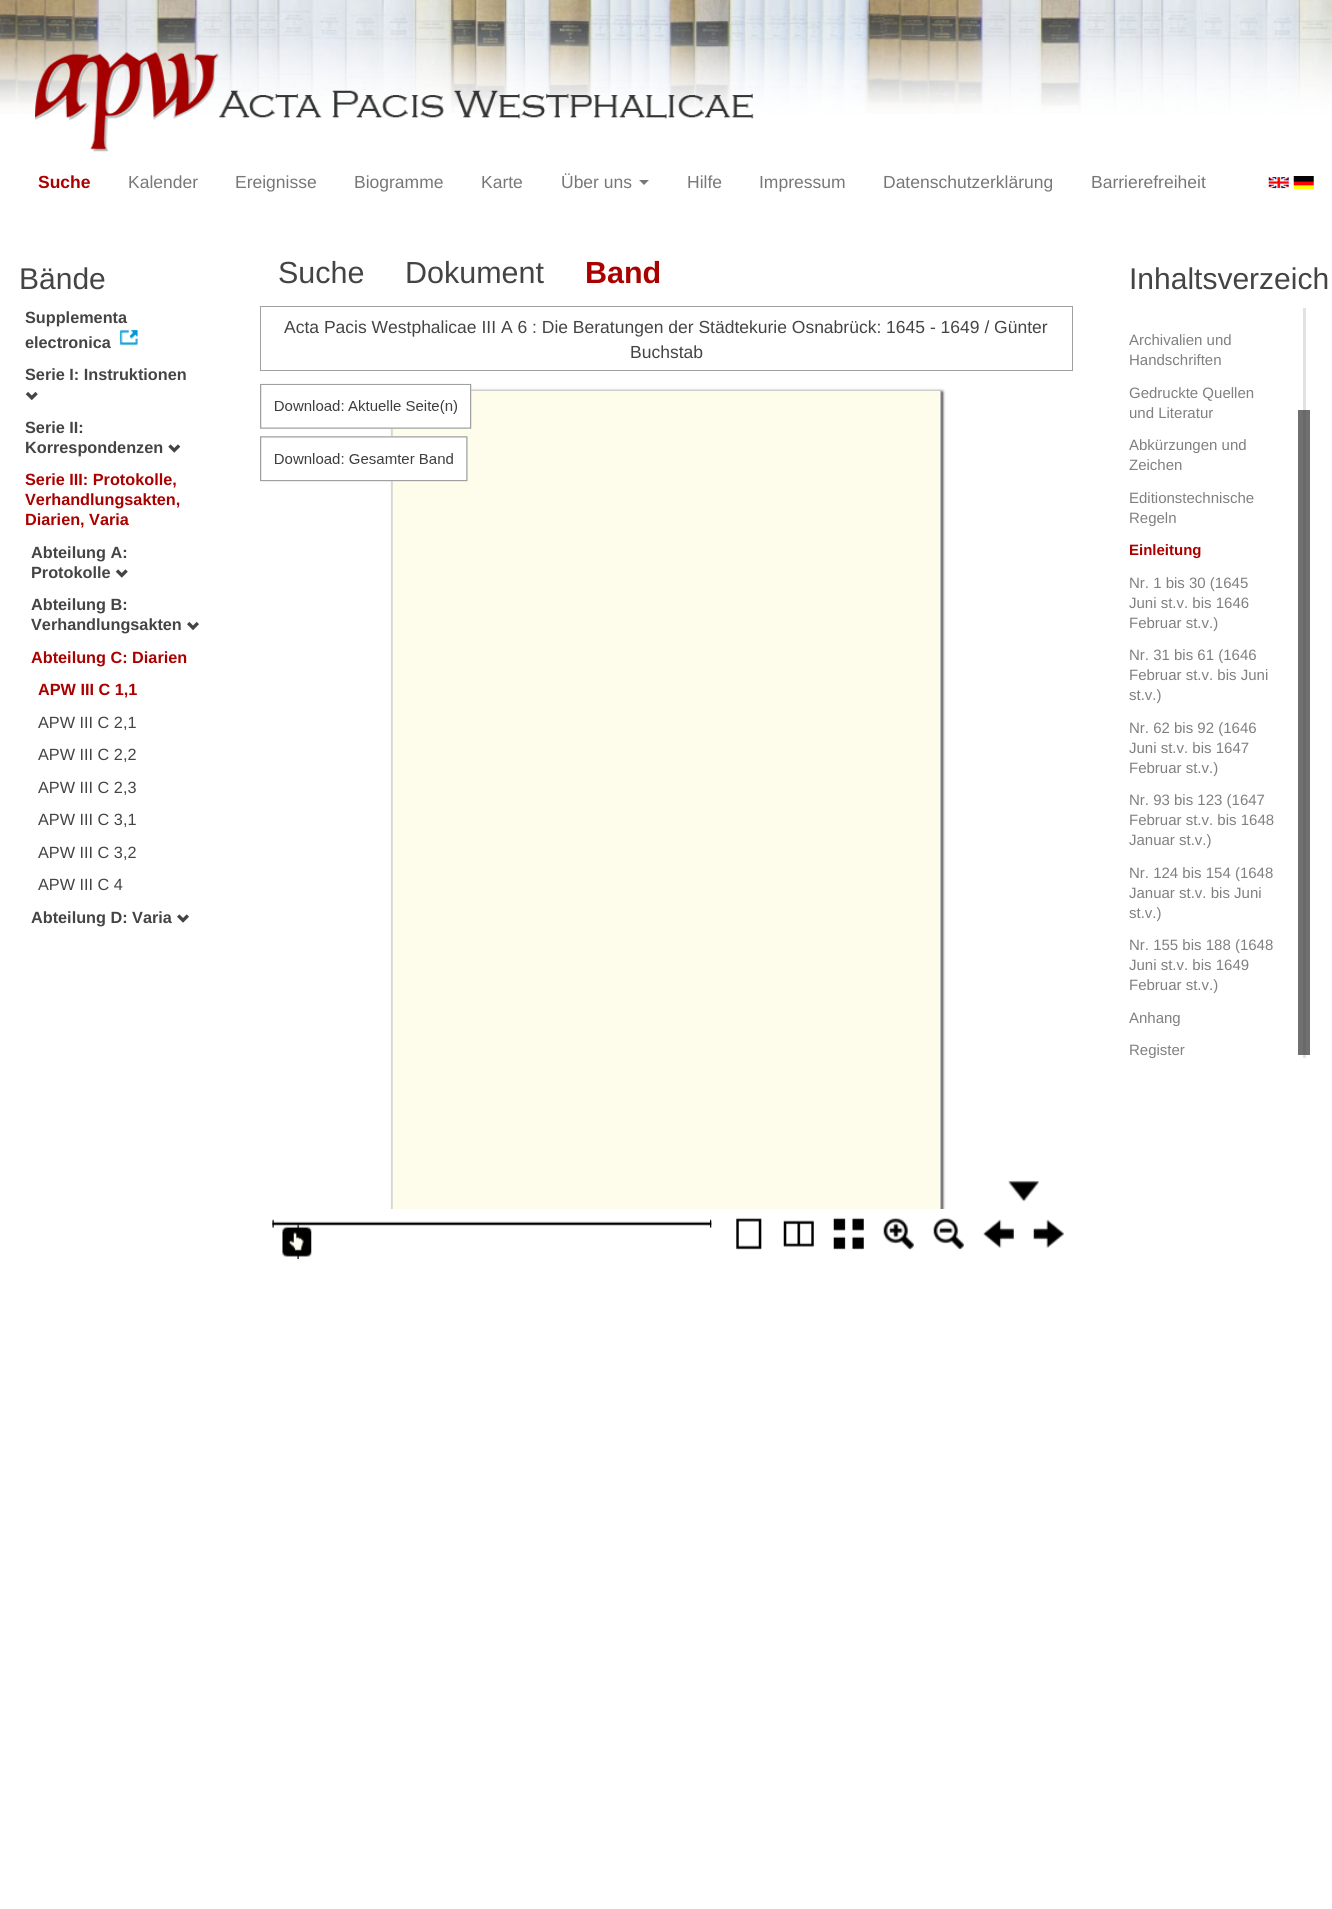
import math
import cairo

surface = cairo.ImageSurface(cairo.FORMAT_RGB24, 1332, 1909)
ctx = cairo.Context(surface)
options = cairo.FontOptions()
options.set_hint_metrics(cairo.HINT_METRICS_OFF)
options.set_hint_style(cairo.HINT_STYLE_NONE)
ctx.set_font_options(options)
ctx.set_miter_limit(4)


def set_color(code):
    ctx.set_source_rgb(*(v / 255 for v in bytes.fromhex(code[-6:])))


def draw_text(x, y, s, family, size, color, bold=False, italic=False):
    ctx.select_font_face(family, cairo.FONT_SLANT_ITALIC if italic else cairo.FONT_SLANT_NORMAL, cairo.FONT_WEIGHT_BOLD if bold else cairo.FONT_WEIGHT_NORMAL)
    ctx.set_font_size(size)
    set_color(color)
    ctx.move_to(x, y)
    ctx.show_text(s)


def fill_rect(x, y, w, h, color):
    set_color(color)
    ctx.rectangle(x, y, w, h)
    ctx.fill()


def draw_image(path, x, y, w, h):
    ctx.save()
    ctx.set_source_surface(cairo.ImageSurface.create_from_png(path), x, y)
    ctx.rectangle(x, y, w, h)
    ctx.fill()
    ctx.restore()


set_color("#ffffff")
ctx.paint()
fill_rect(1298, 410, 12, 645, "#707070")
draw_image("assets/img1.png", 0, 0, 1332, 114)
draw_image("assets/img2.png", 35, 52, 719, 100)
draw_text(38, 188, "Suche", "Liberation Sans", 17.5, "#aa0000", bold=True)
draw_text(128, 188, "Kalender", "Liberation Sans", 17.5, "#777777")
draw_text(235, 188, "Ereignisse", "Liberation Sans", 17.5, "#777777")
draw_text(354, 188, "Biogramme", "Liberation Sans", 17.5, "#777777")
draw_text(481, 188, "Karte", "Liberation Sans", 17.5, "#777777")
draw_text(561, 188, "Über uns", "Liberation Sans", 17.5, "#777777")
ctx.new_path()
ctx.move_to(639, 180)
ctx.line_to(649, 180)
ctx.line_to(644, 185)
ctx.close_path()
ctx.fill()
draw_text(687, 188, "Hilfe", "Liberation Sans", 17.5, "#777777")
draw_text(759, 188, "Impressum", "Liberation Sans", 17.5, "#777777")
draw_text(883, 188, "Datenschutzerklärung", "Liberation Sans", 17.5, "#777777")
draw_text(1091, 188, "Barrierefreiheit", "Liberation Sans", 17.5, "#777777")
draw_image("assets/img3.png", 1268, 177, 21, 12)
draw_image("assets/img4.png", 1293, 176, 21, 14)
draw_text(19, 289, "Bände", "Liberation Sans", 30, "#444444")
draw_text(25, 323, "Supplementa", "Liberation Sans", 16.25, "#444444", bold=True)
draw_text(25, 348, "electronica", "Liberation Sans", 16.25, "#444444", bold=True)
draw_image("assets/img5.png", 119, 329, 19, 17)
draw_text(25, 380, "Serie I: Instruktionen", "Liberation Sans", 16.25, "#444444", bold=True)
draw_image("assets/img6.png", 25, 391, 13, 10)
draw_text(25, 433, "Serie II:", "Liberation Sans", 16.25, "#444444", bold=True)
draw_text(25, 453, "Korrespondenzen", "Liberation Sans", 16.25, "#444444", bold=True)
draw_image("assets/img7.png", 168, 444, 13, 9)
draw_text(25, 485, "Serie III: Protokolle,", "Liberation Sans", 16.25, "#aa0000", bold=True)
draw_text(25, 505, "Verhandlungsakten,", "Liberation Sans", 16.25, "#aa0000", bold=True)
draw_text(25, 525, "Diarien, Varia", "Liberation Sans", 16.25, "#aa0000", bold=True)
draw_text(31, 558, "Abteilung A:", "Liberation Sans", 16.25, "#444444", bold=True)
draw_text(31, 578, "Protokolle", "Liberation Sans", 16.25, "#444444", bold=True)
draw_image("assets/img8.png", 115, 569, 13, 9)
draw_text(31, 610, "Abteilung B:", "Liberation Sans", 16.25, "#444444", bold=True)
draw_text(31, 630, "Verhandlungsakten", "Liberation Sans", 16.25, "#444444", bold=True)
draw_image("assets/img9.png", 187, 621, 12, 10)
draw_text(31, 663, "Abteilung C: Diarien", "Liberation Sans", 16.25, "#aa0000", bold=True)
draw_text(38, 695, "APW III C 1,1", "Liberation Sans", 16.25, "#aa0000", bold=True)
draw_text(38, 728, "APW III C 2,1", "Liberation Sans", 16.25, "#444444")
draw_text(38, 760, "APW III C 2,2", "Liberation Sans", 16.25, "#444444")
draw_text(38, 793, "APW III C 2,3", "Liberation Sans", 16.25, "#444444")
draw_text(38, 825, "APW III C 3,1", "Liberation Sans", 16.25, "#444444")
draw_text(38, 858, "APW III C 3,2", "Liberation Sans", 16.25, "#444444")
draw_text(38, 890, "APW III C 4", "Liberation Sans", 16.25, "#444444")
draw_text(31, 923, "Abteilung D: Varia", "Liberation Sans", 16.25, "#444444", bold=True)
draw_image("assets/img10.png", 177, 914, 12, 9)
draw_text(278, 283, "Suche", "Liberation Sans", 30.5, "#444444")
draw_text(405, 283, "Dokument", "Liberation Sans", 30.5, "#444444")
draw_text(585, 283, "Band", "Liberation Sans", 30.5, "#aa0000", bold=True)
ctx.rectangle(260.5, 306.5, 812, 64)
set_color("#a0a0a0")
ctx.set_line_width(1)
ctx.stroke()
draw_text(284, 333, "Acta Pacis Westphalicae III A 6 : Die Beratungen der Städtekurie Osnabrück: 1645 - 1649 / Günter", "Liberation Sans", 17.5, "#444444")
draw_text(630, 358, "Buchstab", "Liberation Sans", 17.5, "#444444")
draw_image("assets/img11.png", 260, 383, 804, 876)
draw_text(1129, 289, "Inhaltsverzeich", "Liberation Sans", 30, "#444444")
draw_text(1129, 345, "Archivalien und", "Liberation Sans", 15, "#808080")
draw_text(1129, 365, "Handschriften", "Liberation Sans", 15, "#808080")
draw_text(1129, 398, "Gedruckte Quellen", "Liberation Sans", 15, "#808080")
draw_text(1129, 418, "und Literatur", "Liberation Sans", 15, "#808080")
draw_text(1129, 450, "Abkürzungen und", "Liberation Sans", 15, "#808080")
draw_text(1129, 470, "Zeichen", "Liberation Sans", 15, "#808080")
draw_text(1129, 503, "Editionstechnische", "Liberation Sans", 15, "#808080")
draw_text(1129, 523, "Regeln", "Liberation Sans", 15, "#808080")
draw_text(1129, 555, "Einleitung", "Liberation Sans", 15, "#aa0000", bold=True)
draw_text(1129, 588, "Nr. 1 bis 30 (1645", "Liberation Sans", 15, "#808080")
draw_text(1129, 608, "Juni st.v. bis 1646", "Liberation Sans", 15, "#808080")
draw_text(1129, 628, "Februar st.v.)", "Liberation Sans", 15, "#808080")
draw_text(1129, 660, "Nr. 31 bis 61 (1646", "Liberation Sans", 15, "#808080")
draw_text(1129, 680, "Februar st.v. bis Juni", "Liberation Sans", 15, "#808080")
draw_text(1129, 700, "st.v.)", "Liberation Sans", 15, "#808080")
draw_text(1129, 733, "Nr. 62 bis 92 (1646", "Liberation Sans", 15, "#808080")
draw_text(1129, 753, "Juni st.v. bis 1647", "Liberation Sans", 15, "#808080")
draw_text(1129, 773, "Februar st.v.)", "Liberation Sans", 15, "#808080")
draw_text(1129, 805, "Nr. 93 bis 123 (1647", "Liberation Sans", 15, "#808080")
draw_text(1129, 825, "Februar st.v. bis 1648", "Liberation Sans", 15, "#808080")
draw_text(1129, 845, "Januar st.v.)", "Liberation Sans", 15, "#808080")
draw_text(1129, 878, "Nr. 124 bis 154 (1648", "Liberation Sans", 15, "#808080")
draw_text(1129, 898, "Januar st.v. bis Juni", "Liberation Sans", 15, "#808080")
draw_text(1129, 918, "st.v.)", "Liberation Sans", 15, "#808080")
draw_text(1129, 950, "Nr. 155 bis 188 (1648", "Liberation Sans", 15, "#808080")
draw_text(1129, 970, "Juni st.v. bis 1649", "Liberation Sans", 15, "#808080")
draw_text(1129, 990, "Februar st.v.)", "Liberation Sans", 15, "#808080")
draw_text(1129, 1023, "Anhang", "Liberation Sans", 15, "#808080")
draw_text(1129, 1055, "Register", "Liberation Sans", 15, "#808080")
fill_rect(1303, 308, 3, 750, "#e2e2e2")
fill_rect(1303, 410, 3, 645, "#696969")
surface.write_to_png("output.png")
